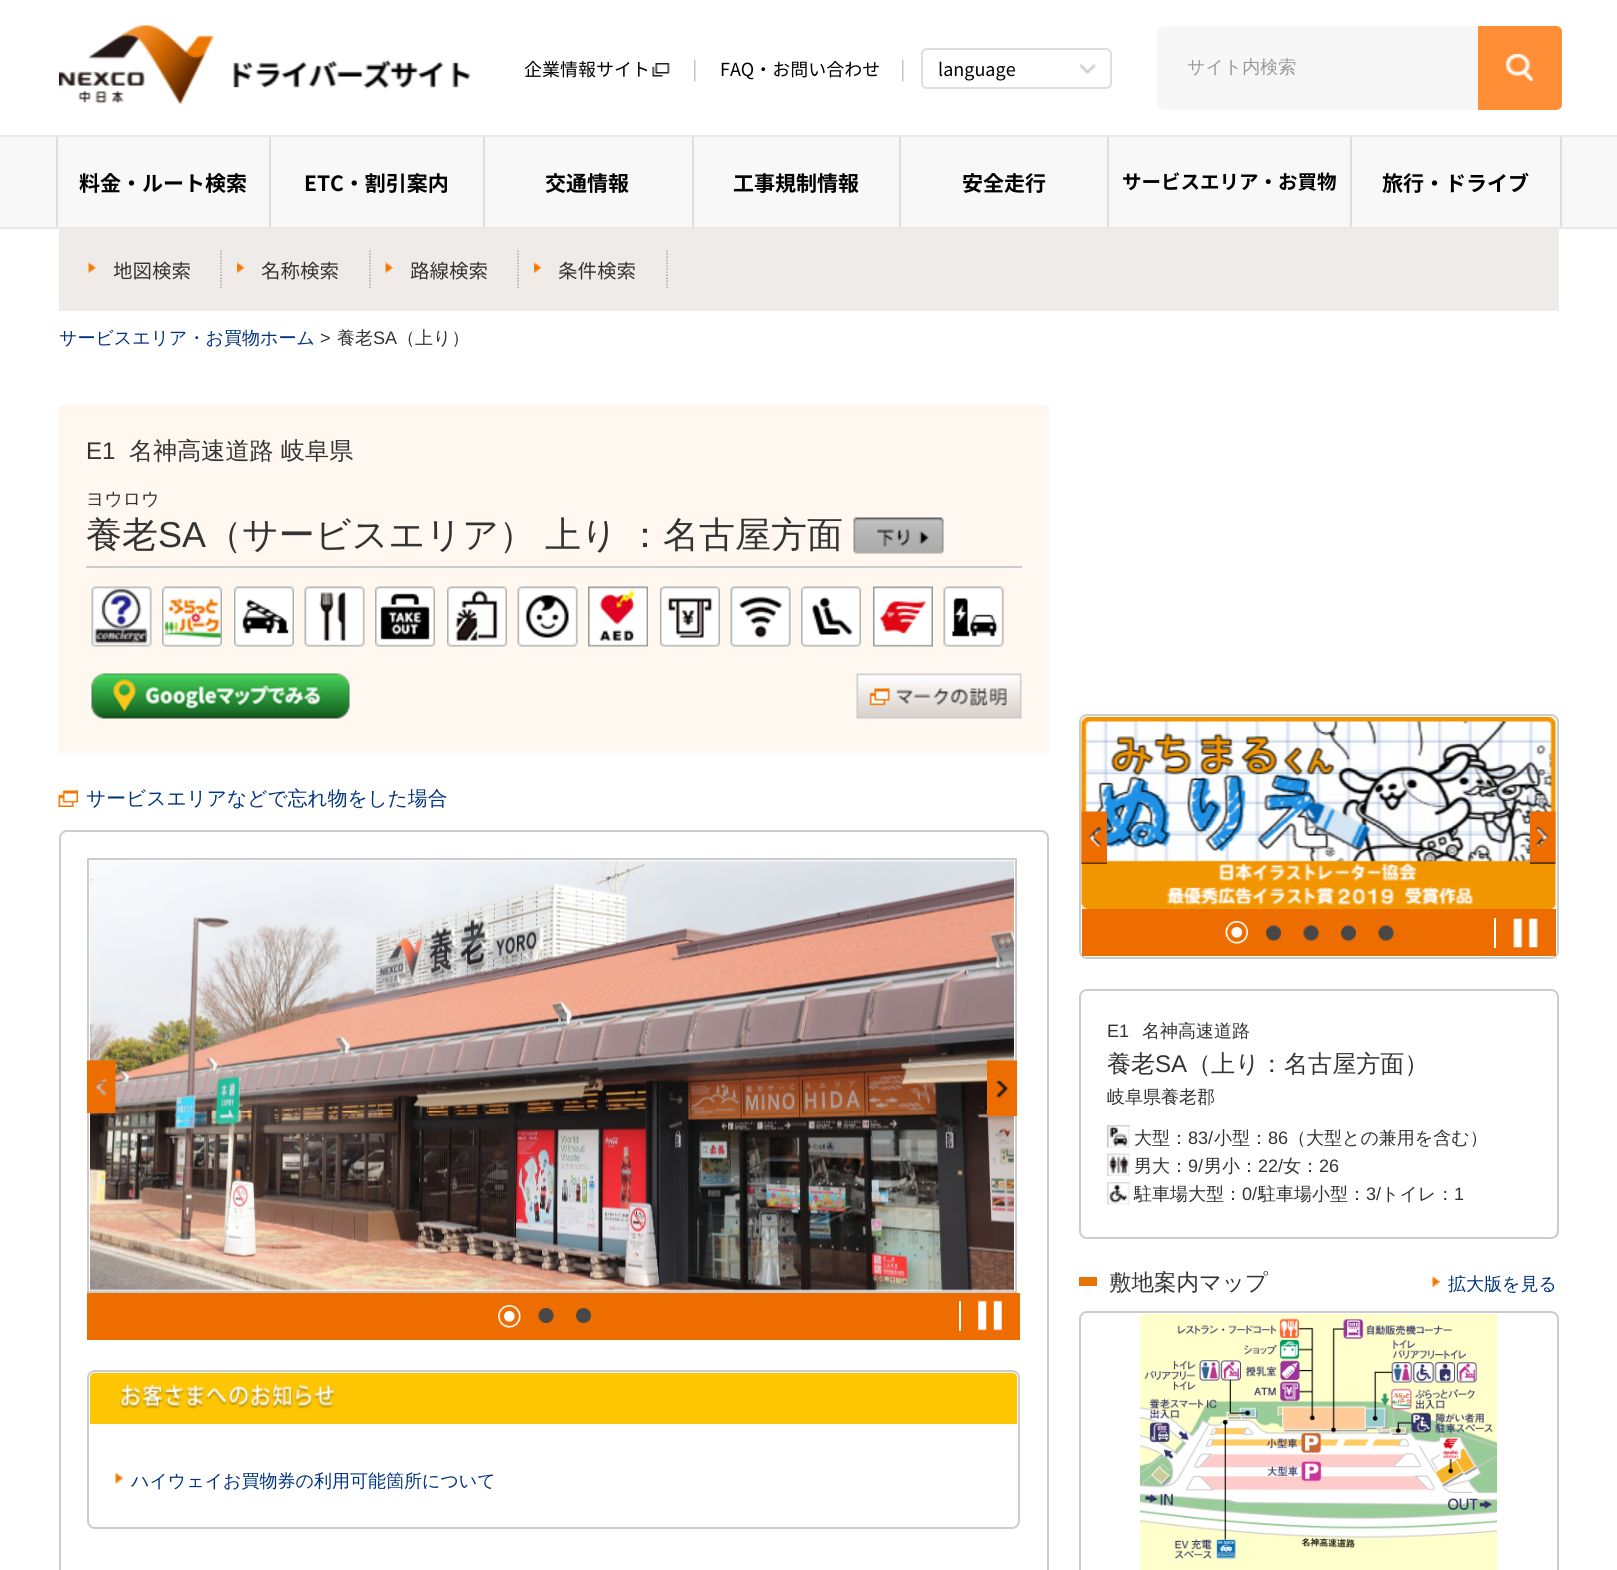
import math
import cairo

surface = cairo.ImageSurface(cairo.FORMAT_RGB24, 1617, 1570)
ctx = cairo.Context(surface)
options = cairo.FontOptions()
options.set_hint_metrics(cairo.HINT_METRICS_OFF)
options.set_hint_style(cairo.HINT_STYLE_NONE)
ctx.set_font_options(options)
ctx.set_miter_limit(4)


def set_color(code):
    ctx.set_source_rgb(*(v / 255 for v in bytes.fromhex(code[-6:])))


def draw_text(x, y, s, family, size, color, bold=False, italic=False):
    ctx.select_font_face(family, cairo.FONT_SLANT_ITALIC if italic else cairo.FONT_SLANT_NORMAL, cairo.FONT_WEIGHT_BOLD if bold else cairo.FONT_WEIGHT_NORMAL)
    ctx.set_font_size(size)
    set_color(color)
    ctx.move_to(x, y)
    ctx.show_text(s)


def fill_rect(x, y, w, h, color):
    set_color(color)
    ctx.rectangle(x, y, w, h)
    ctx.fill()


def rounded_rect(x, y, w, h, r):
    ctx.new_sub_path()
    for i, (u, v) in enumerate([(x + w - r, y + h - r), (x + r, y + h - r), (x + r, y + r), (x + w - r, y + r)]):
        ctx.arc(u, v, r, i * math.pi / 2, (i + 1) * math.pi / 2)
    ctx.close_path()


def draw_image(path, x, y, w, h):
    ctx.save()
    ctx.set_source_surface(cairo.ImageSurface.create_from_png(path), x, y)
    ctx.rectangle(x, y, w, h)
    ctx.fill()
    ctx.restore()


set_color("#ffffff")
ctx.paint()
draw_image("assets/img1.png", 59, 25, 411, 79)
draw_text(524, 76, "企業情報サイト", "Noto Sans JP", 18, "#000000")
draw_image("assets/img2.png", 652, 63, 18, 14)
draw_text(690, 76, "│", "Liberation Sans", 18, "#b9b9b9")
draw_text(720, 76, "FAQ・お問い合わせ", "Noto Sans JP", 18, "#000000")
draw_text(898, 76, "│", "Liberation Sans", 18, "#b9b9b9")
rounded_rect(922, 49, 189, 39, 5)
set_color("#dedede")
ctx.stroke()
draw_text(938, 76, "language", "Noto Sans JP", 18, "#000000")
draw_image("assets/img3.png", 1080, 64, 16, 10)
set_color("#f7f7f7")
ctx.new_path()
ctx.move_to(1163, 26)
ctx.line_to(1478, 26)
ctx.line_to(1478, 110)
ctx.line_to(1163, 110)
ctx.curve_to(1159.5, 110, 1157, 107.5, 1157, 104)
ctx.line_to(1157, 32)
ctx.curve_to(1157, 28.5, 1159.5, 26, 1163, 26)
ctx.close_path()
ctx.fill()
draw_text(1187, 73, "サイト内検索", "WenQuanYi Zen Hei Medium", 18, "#989898")
set_color("#ff8e36")
ctx.new_path()
ctx.move_to(1478, 26)
ctx.line_to(1556, 26)
ctx.curve_to(1559.5, 26, 1562, 28.5, 1562, 32)
ctx.line_to(1562, 104)
ctx.curve_to(1562, 107.5, 1559.5, 110, 1556, 110)
ctx.line_to(1478, 110)
ctx.close_path()
ctx.fill()
draw_image("assets/img4.png", 1505, 54, 29, 27)
fill_rect(0, 137, 1617, 90, "#f8f8f8")
fill_rect(0, 135, 1617, 2, "#e8e8e8")
fill_rect(0, 227, 1617, 2, "#e8e8e8")
fill_rect(56, 137, 2, 90, "#dedede")
draw_text(79, 191, "料金・ルート検索", "Noto Sans CJK JP", 21, "#000000", bold=True)
fill_rect(269, 137, 2, 90, "#dedede")
draw_text(304, 191, "ETC・割引案内", "Noto Sans CJK JP", 21, "#000000", bold=True)
fill_rect(483, 137, 2, 90, "#dedede")
draw_text(545, 191, "交通情報", "Noto Sans CJK JP", 21, "#000000", bold=True)
fill_rect(692, 137, 2, 90, "#dedede")
draw_text(733, 191, "工事規制情報", "Noto Sans CJK JP", 21, "#000000", bold=True)
fill_rect(899, 137, 2, 90, "#dedede")
draw_text(962, 191, "安全走行", "Noto Sans CJK JP", 21, "#000000", bold=True)
fill_rect(1107, 137, 2, 90, "#dedede")
draw_text(1122, 189, "サービスエリア・お買物", "Noto Sans CJK JP", 19.5, "#000000", bold=True)
fill_rect(1560, 137, 2, 90, "#dedede")
fill_rect(1350, 137, 2, 90, "#dedede")
draw_text(1382, 191, "旅行・ドライブ", "Noto Sans CJK JP", 21, "#000000", bold=True)
fill_rect(59, 229, 1500, 82, "#eeebe8")
ctx.new_path()
ctx.move_to(221, 250.5)
ctx.line_to(221, 288)
set_color("#aaaaaa")
ctx.set_line_width(1.5)
ctx.set_dash([1.5, 1.5])
ctx.stroke()
draw_image("assets/img5.png", 88, 262, 8, 11)
draw_text(113, 278, "地図検索", "Noto Sans JP", 19.5, "#333333")
ctx.new_path()
ctx.move_to(370, 250.5)
ctx.line_to(370, 288)
set_color("#aaaaaa")
ctx.stroke()
draw_image("assets/img6.png", 237, 262, 8, 11)
draw_text(261, 278, "名称検索", "Noto Sans JP", 19.5, "#333333")
ctx.new_path()
ctx.move_to(518, 250.5)
ctx.line_to(518, 288)
set_color("#aaaaaa")
ctx.stroke()
draw_image("assets/img7.png", 385, 262, 8, 11)
draw_text(410, 278, "路線検索", "Noto Sans JP", 19.5, "#333333")
ctx.new_path()
ctx.move_to(667, 250.5)
ctx.line_to(667, 288)
set_color("#aaaaaa")
ctx.stroke()
draw_image("assets/img6.png", 534, 262, 8, 11)
draw_text(558, 278, "条件検索", "Noto Sans JP", 19.5, "#333333")
draw_text(59, 344, "サービスエリア・お買物ホーム", "WenQuanYi Zen Hei Medium", 18, "#00337f")
draw_text(320, 344, ">", "Liberation Sans", 18, "#333333")
draw_text(337, 344, "養老", "WenQuanYi Zen Hei Medium", 18, "#333333")
draw_text(373, 344, "SA", "Liberation Sans", 18, "#333333")
draw_text(397, 344, "（上り）", "WenQuanYi Zen Hei Medium", 18, "#333333")
fill_rect(59, 405, 990, 348, "#fff8f0")
draw_text(86, 459, "E1", "Liberation Sans", 24.1, "#333333")
draw_text(129, 459, "名神高速道路", "WenQuanYi Zen Hei Medium", 24.1, "#333333")
draw_text(281, 459, "岐阜県", "WenQuanYi Zen Hei Medium", 24.1, "#333333")
draw_text(86, 505, "ヨウロウ", "WenQuanYi Zen Hei Medium", 18, "#333333")
fill_rect(86, 566, 936, 2, "#cccccc")
draw_text(86, 547, "養老", "WenQuanYi Zen Hei Medium", 36, "#333333")
draw_text(158, 547, "SA", "Liberation Sans", 36, "#333333")
draw_text(206, 547, "（サービスエリア）", "WenQuanYi Zen Hei Medium", 36, "#333333")
draw_text(545, 547, "上り", "WenQuanYi Zen Hei Medium", 36, "#333333")
draw_text(627, 547, "：名古屋方面", "WenQuanYi Zen Hei Medium", 36, "#333333")
draw_image("assets/img8.png", 853, 517, 91, 37)
draw_image("assets/img9.png", 91, 586, 61, 61)
draw_image("assets/img10.png", 162, 586, 60, 61)
draw_image("assets/img11.png", 234, 586, 60, 61)
draw_image("assets/img12.png", 304, 586, 61, 61)
draw_image("assets/img13.png", 375, 586, 60, 61)
draw_image("assets/img14.png", 447, 586, 60, 61)
draw_image("assets/img15.png", 517, 586, 61, 61)
draw_image("assets/img16.png", 588, 586, 60, 61)
draw_image("assets/img17.png", 660, 586, 60, 61)
draw_image("assets/img18.png", 730, 586, 61, 61)
draw_image("assets/img19.png", 801, 586, 60, 61)
draw_image("assets/img20.png", 873, 586, 60, 61)
draw_image("assets/img21.png", 943, 586, 61, 61)
draw_image("assets/img22.png", 91, 673, 259, 46)
draw_image("assets/img23.png", 856, 673, 166, 46)
draw_image("assets/img24.png", 58, 790, 20, 17)
draw_text(86, 805, "サービスエリアなどで忘れ物をした場合", "WenQuanYi Zen Hei Medium", 19.75, "#00337f")
rounded_rect(60, 831, 988, 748, 7)
set_color("#cccccc")
ctx.set_line_width(2)
ctx.set_dash([])
ctx.stroke()
ctx.rectangle(88, 859, 928, 433)
ctx.stroke()
draw_image("assets/img25.png", 90, 860, 924, 431)
fill_rect(87, 1293, 933, 47, "#ee6d00")
draw_image("assets/img26.png", 87, 1060, 29, 53)
draw_image("assets/img27.png", 987, 1060, 30, 56)
draw_image("assets/img28.png", 498, 1305, 23, 23)
draw_image("assets/img29.png", 538, 1308, 16, 15)
draw_image("assets/img30.png", 576, 1308, 15, 15)
fill_rect(959, 1301, 2, 30, "#ffffff")
draw_image("assets/img31.png", 978, 1300, 24, 31)
rounded_rect(88, 1371, 931, 157, 7)
set_color("#cccccc")
ctx.stroke()
set_color("#fec502")
ctx.new_path()
ctx.move_to(95, 1373)
ctx.line_to(1012, 1373)
ctx.curve_to(1015, 1373, 1017, 1375, 1017, 1378)
ctx.line_to(1017, 1424)
ctx.line_to(90, 1424)
ctx.line_to(90, 1378)
ctx.curve_to(90, 1375, 92, 1373, 95, 1373)
ctx.close_path()
ctx.fill()
draw_image("assets/img32.png", 120, 1384, 215, 25)
draw_image("assets/img33.png", 115, 1473, 8, 11)
draw_text(131, 1487, "ハイウェイお買物券の利用可能箇所について", "WenQuanYi Zen Hei Medium", 18, "#00337f")
rounded_rect(1080, 715, 478, 243, 7)
set_color("#cccccc")
ctx.stroke()
draw_image("assets/img34.png", 1081, 717, 475, 192)
fill_rect(1082, 909, 474, 47, "#ee6d00")
draw_image("assets/img35.png", 1081, 811, 26, 53)
draw_image("assets/img36.png", 1530, 811, 26, 53)
draw_image("assets/img37.png", 1225, 921, 23, 23)
draw_image("assets/img38.png", 1266, 925, 15, 16)
draw_image("assets/img39.png", 1303, 925, 16, 16)
draw_image("assets/img38.png", 1341, 925, 15, 16)
draw_image("assets/img39.png", 1378, 925, 16, 16)
fill_rect(1494, 918, 2, 30, "#ffffff")
draw_image("assets/img40.png", 1513, 918, 25, 30)
rounded_rect(1080, 990, 478, 248, 7)
set_color("#cccccc")
ctx.stroke()
draw_text(1107, 1037, "E1", "Liberation Sans", 18, "#333333")
draw_text(1142, 1037, "名神高速道路", "WenQuanYi Zen Hei Medium", 18, "#333333")
draw_text(1107, 1072, "養老", "WenQuanYi Zen Hei Medium", 24.1, "#333333")
draw_text(1155, 1072, "SA", "Liberation Sans", 24.1, "#333333")
draw_text(1187, 1072, "（上り：名古屋方面）", "WenQuanYi Zen Hei Medium", 24.1, "#333333")
draw_text(1107, 1103, "岐阜県養老郡", "WenQuanYi Zen Hei Medium", 18, "#333333")
draw_image("assets/img41.png", 1107, 1125, 23, 23)
draw_text(1134, 1144, "大型：", "WenQuanYi Zen Hei Medium", 18, "#333333")
draw_text(1188, 1144, "83/", "Liberation Sans", 18, "#333333")
draw_text(1214, 1144, "小型：", "WenQuanYi Zen Hei Medium", 18, "#333333")
draw_text(1268, 1144, "86", "Liberation Sans", 18, "#333333")
draw_text(1288, 1144, "（大型との兼用を含む）", "WenQuanYi Zen Hei Medium", 18, "#333333")
draw_image("assets/img42.png", 1107, 1153, 23, 23)
draw_text(1134, 1172, "男大：", "WenQuanYi Zen Hei Medium", 18, "#333333")
draw_text(1188, 1172, "9/", "Liberation Sans", 18, "#333333")
draw_text(1204, 1172, "男小：", "WenQuanYi Zen Hei Medium", 18, "#333333")
draw_text(1258, 1172, "22/", "Liberation Sans", 18, "#333333")
draw_text(1283, 1172, "女：", "WenQuanYi Zen Hei Medium", 18, "#333333")
draw_text(1319, 1172, "26", "Liberation Sans", 18, "#333333")
draw_image("assets/img43.png", 1107, 1182, 23, 23)
draw_text(1134, 1200, "駐車場大型：", "WenQuanYi Zen Hei Medium", 18, "#333333")
draw_text(1242, 1200, "0/", "Liberation Sans", 18, "#333333")
draw_text(1258, 1200, "駐車場小型：", "WenQuanYi Zen Hei Medium", 18, "#333333")
draw_text(1366, 1200, "3/", "Liberation Sans", 18, "#333333")
draw_text(1381, 1200, "トイレ：", "WenQuanYi Zen Hei Medium", 18, "#333333")
draw_text(1454, 1200, "1", "Liberation Sans", 18, "#333333")
fill_rect(1079, 1277, 18, 9, "#e97302")
draw_text(1109, 1290, "敷地案内マップ", "WenQuanYi Zen Hei Medium", 22.5, "#333333")
rounded_rect(1080, 1312, 478, 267, 7)
set_color("#cccccc")
ctx.stroke()
draw_image("assets/img44.png", 1432, 1276, 8, 11)
draw_text(1448, 1290, "拡大版を見る", "WenQuanYi Zen Hei Medium", 18, "#00337f")
draw_image("assets/img45.png", 1140, 1314, 357, 256)
surface.write_to_png("output.png")
